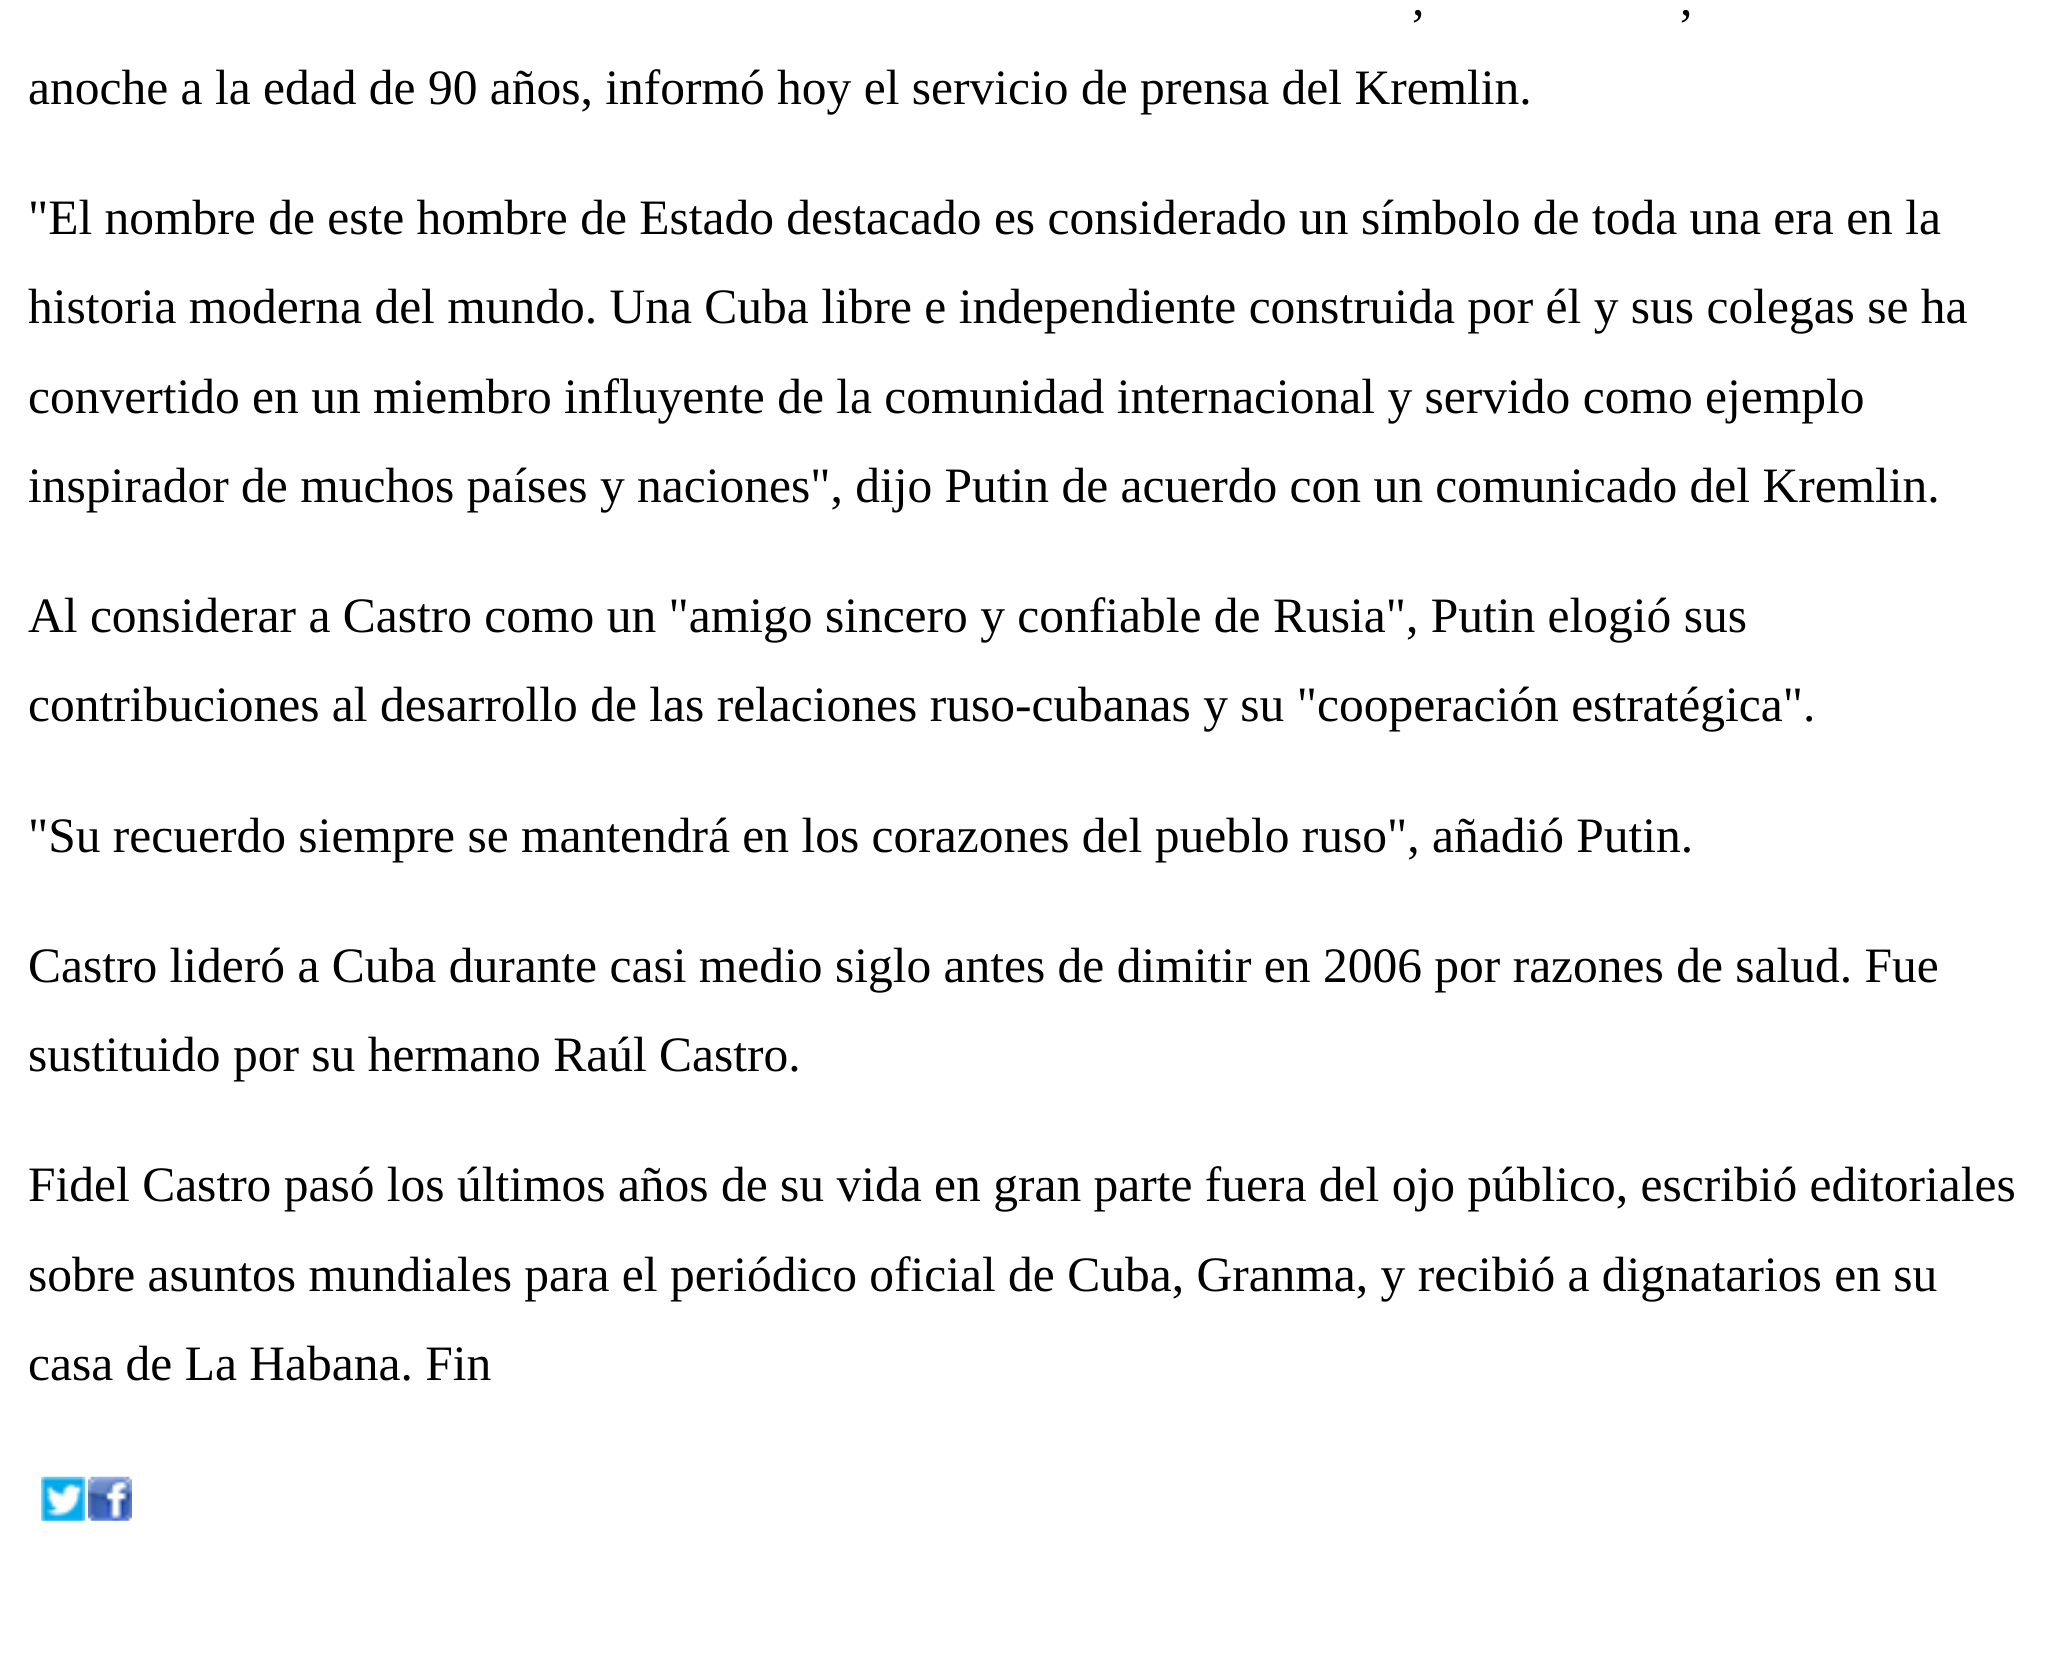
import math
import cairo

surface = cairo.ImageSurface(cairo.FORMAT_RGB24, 2049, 1665)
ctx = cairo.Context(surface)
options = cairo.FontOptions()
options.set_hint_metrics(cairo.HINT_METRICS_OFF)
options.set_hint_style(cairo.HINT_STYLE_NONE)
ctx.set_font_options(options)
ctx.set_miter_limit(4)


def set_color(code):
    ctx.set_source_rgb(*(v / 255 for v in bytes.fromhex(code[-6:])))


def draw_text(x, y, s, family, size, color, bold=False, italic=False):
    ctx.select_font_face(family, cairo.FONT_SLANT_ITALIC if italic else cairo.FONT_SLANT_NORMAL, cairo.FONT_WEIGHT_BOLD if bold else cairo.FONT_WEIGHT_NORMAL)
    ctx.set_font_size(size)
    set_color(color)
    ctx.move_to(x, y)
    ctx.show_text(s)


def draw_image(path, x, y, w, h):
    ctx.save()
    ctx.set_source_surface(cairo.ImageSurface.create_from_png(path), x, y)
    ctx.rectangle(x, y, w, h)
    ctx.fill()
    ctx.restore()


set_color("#ffffff")
ctx.paint()
draw_text(1412, 15, ",", "Liberation Serif", 49.5, "#000000")
draw_text(1680, 15, ",", "Liberation Serif", 49.5, "#000000")
draw_text(28, 104, "anoche a la edad de 90 años, informó hoy el servicio de prensa del Kremlin.", "Liberation Serif", 49.5, "#000000")
draw_text(28, 234, "\"El nombre de este hombre de Estado destacado es considerado un símbolo de toda una era en la", "Liberation Serif", 49.5, "#000000")
draw_text(28, 323, "historia moderna del mundo. Una Cuba libre e independiente construida por él y sus colegas se ha", "Liberation Serif", 49.5, "#000000")
draw_text(28, 413, "convertido en un miembro influyente de la comunidad internacional y servido como ejemplo", "Liberation Serif", 49.5, "#000000")
draw_text(28, 502, "inspirador de muchos países y naciones\", dijo Putin de acuerdo con un comunicado del Kremlin.", "Liberation Serif", 49.5, "#000000")
draw_text(28, 632, "Al considerar a Castro como un \"amigo sincero y confiable de Rusia\", Putin elogió sus", "Liberation Serif", 49.5, "#000000")
draw_text(28, 721, "contribuciones al desarrollo de las relaciones ruso-cubanas y su \"cooperación estratégica\".", "Liberation Serif", 49.5, "#000000")
draw_text(28, 852, "\"Su recuerdo siempre se mantendrá en los corazones del pueblo ruso\", añadió Putin.", "Liberation Serif", 49.5, "#000000")
draw_text(28, 982, "Castro lideró a Cuba durante casi medio siglo antes de dimitir en 2006 por razones de salud. Fue", "Liberation Serif", 49.5, "#000000")
draw_text(28, 1071, "sustituido por su hermano Raúl Castro.", "Liberation Serif", 49.5, "#000000")
draw_text(28, 1201, "Fidel Castro pasó los últimos años de su vida en gran parte fuera del ojo público, escribió editoriales", "Liberation Serif", 49.5, "#000000")
draw_text(28, 1291, "sobre asuntos mundiales para el periódico oficial de Cuba, Granma, y recibió a dignatarios en su", "Liberation Serif", 49.5, "#000000")
draw_text(28, 1380, "casa de La Habana. Fin", "Liberation Serif", 49.5, "#000000")
draw_image("assets/img1.png", 41, 1476, 45, 45)
draw_image("assets/img2.png", 88, 1476, 44, 45)
surface.write_to_png("output.png")
